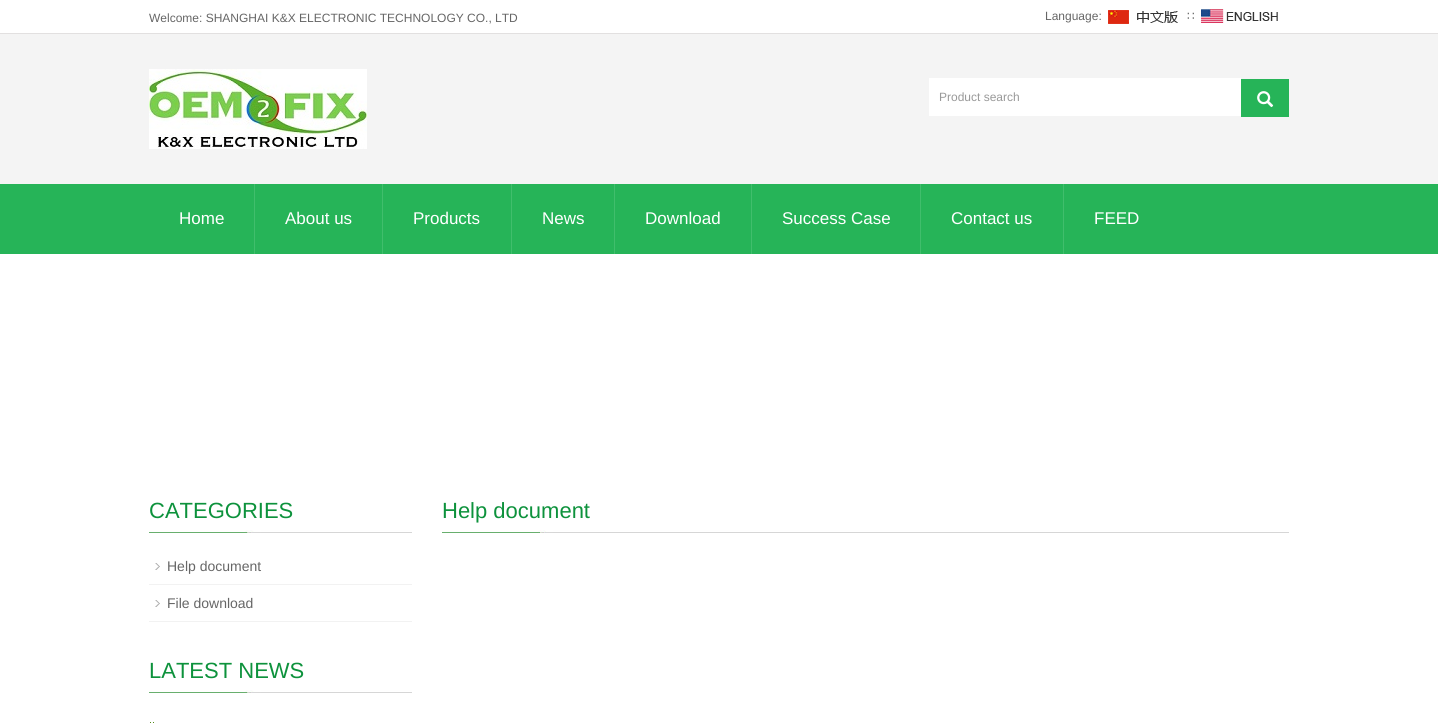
import math
import cairo

surface = cairo.ImageSurface(cairo.FORMAT_RGB24, 1438, 723)
ctx = cairo.Context(surface)
options = cairo.FontOptions()
options.set_hint_metrics(cairo.HINT_METRICS_OFF)
options.set_hint_style(cairo.HINT_STYLE_NONE)
ctx.set_font_options(options)
ctx.set_miter_limit(4)


def set_color(code):
    ctx.set_source_rgb(*(v / 255 for v in bytes.fromhex(code[-6:])))


def draw_text(x, y, s, family, size, color, bold=False, italic=False):
    ctx.select_font_face(family, cairo.FONT_SLANT_ITALIC if italic else cairo.FONT_SLANT_NORMAL, cairo.FONT_WEIGHT_BOLD if bold else cairo.FONT_WEIGHT_NORMAL)
    ctx.set_font_size(size)
    set_color(color)
    ctx.move_to(x, y)
    ctx.show_text(s)


def fill_rect(x, y, w, h, color):
    set_color(color)
    ctx.rectangle(x, y, w, h)
    ctx.fill()


def draw_image(path, x, y, w, h):
    ctx.save()
    ctx.set_source_surface(cairo.ImageSurface.create_from_png(path), x, y)
    ctx.rectangle(x, y, w, h)
    ctx.fill()
    ctx.restore()


set_color("#ffffff")
ctx.paint()
fill_rect(0, 34, 1438, 150, "#f4f4f4")
fill_rect(0, 33, 1438, 1, "#e2e0e0")
draw_text(149, 22, "Welcome: SHANGHAI K&X ELECTRONIC TECHNOLOGY CO., LTD", "Liberation Sans", 12, "#666666")
draw_text(1045, 20, "Language:", "Liberation Sans", 12, "#666666")
draw_image("assets/img1.png", 1108, 10, 70, 14)
draw_text(1187, 20, "∷", "DejaVu Sans", 12, "#666666")
draw_image("assets/img2.png", 1201, 9, 77, 14)
draw_image("assets/img3.png", 149, 69, 218, 80)
fill_rect(929, 78, 312, 38, "#ffffff")
draw_text(939, 101, "Product search", "Liberation Sans", 12, "#999999")
fill_rect(1241, 79, 48, 38, "#26b458")
draw_image("assets/img4.png", 1257, 91, 17, 17)
fill_rect(0, 184, 1438, 70, "#26b458")
fill_rect(254, 184, 1, 70, "#40be6c")
draw_text(179, 224, "Home", "Liberation Sans", 17, "#ffffff")
fill_rect(382, 184, 1, 70, "#40be6c")
draw_text(285, 224, "About us", "Liberation Sans", 17, "#ffffff")
fill_rect(511, 184, 1, 70, "#40be6c")
draw_text(413, 224, "Products", "Liberation Sans", 17, "#ffffff")
fill_rect(614, 184, 1, 70, "#40be6c")
draw_text(542, 224, "News", "Liberation Sans", 17, "#ffffff")
fill_rect(751, 184, 1, 70, "#40be6c")
draw_text(645, 224, "Download", "Liberation Sans", 17, "#ffffff")
fill_rect(920, 184, 1, 70, "#40be6c")
draw_text(782, 224, "Success Case", "Liberation Sans", 17, "#ffffff")
fill_rect(1063, 184, 1, 70, "#40be6c")
draw_text(951, 224, "Contact us", "Liberation Sans", 17, "#ffffff")
draw_text(1094, 224, "FEED", "Liberation Sans", 17, "#ffffff")
draw_image("assets/img5.png", 149, 530, 263, 3)
draw_text(149, 518, "CATEGORIES", "Liberation Sans", 22, "#0d923c")
draw_image("assets/img6.png", 155, 563, 5, 7)
fill_rect(149, 584, 263, 1, "#f2f2f2")
draw_text(167, 571, "Help document", "Liberation Sans", 14, "#666666")
draw_image("assets/img6.png", 155, 600, 5, 7)
fill_rect(149, 621, 263, 1, "#f2f2f2")
draw_text(167, 608, "File download", "Liberation Sans", 14, "#666666")
draw_image("assets/img5.png", 149, 690, 263, 3)
draw_text(149, 678, "LATEST NEWS", "Liberation Sans", 22, "#0d923c")
draw_image("assets/img7.png", 150, 722, 4, 1)
draw_image("assets/img8.png", 442, 530, 847, 3)
draw_text(442, 518, "Help document", "Liberation Sans", 22, "#0d923c")
surface.write_to_png("output.png")
